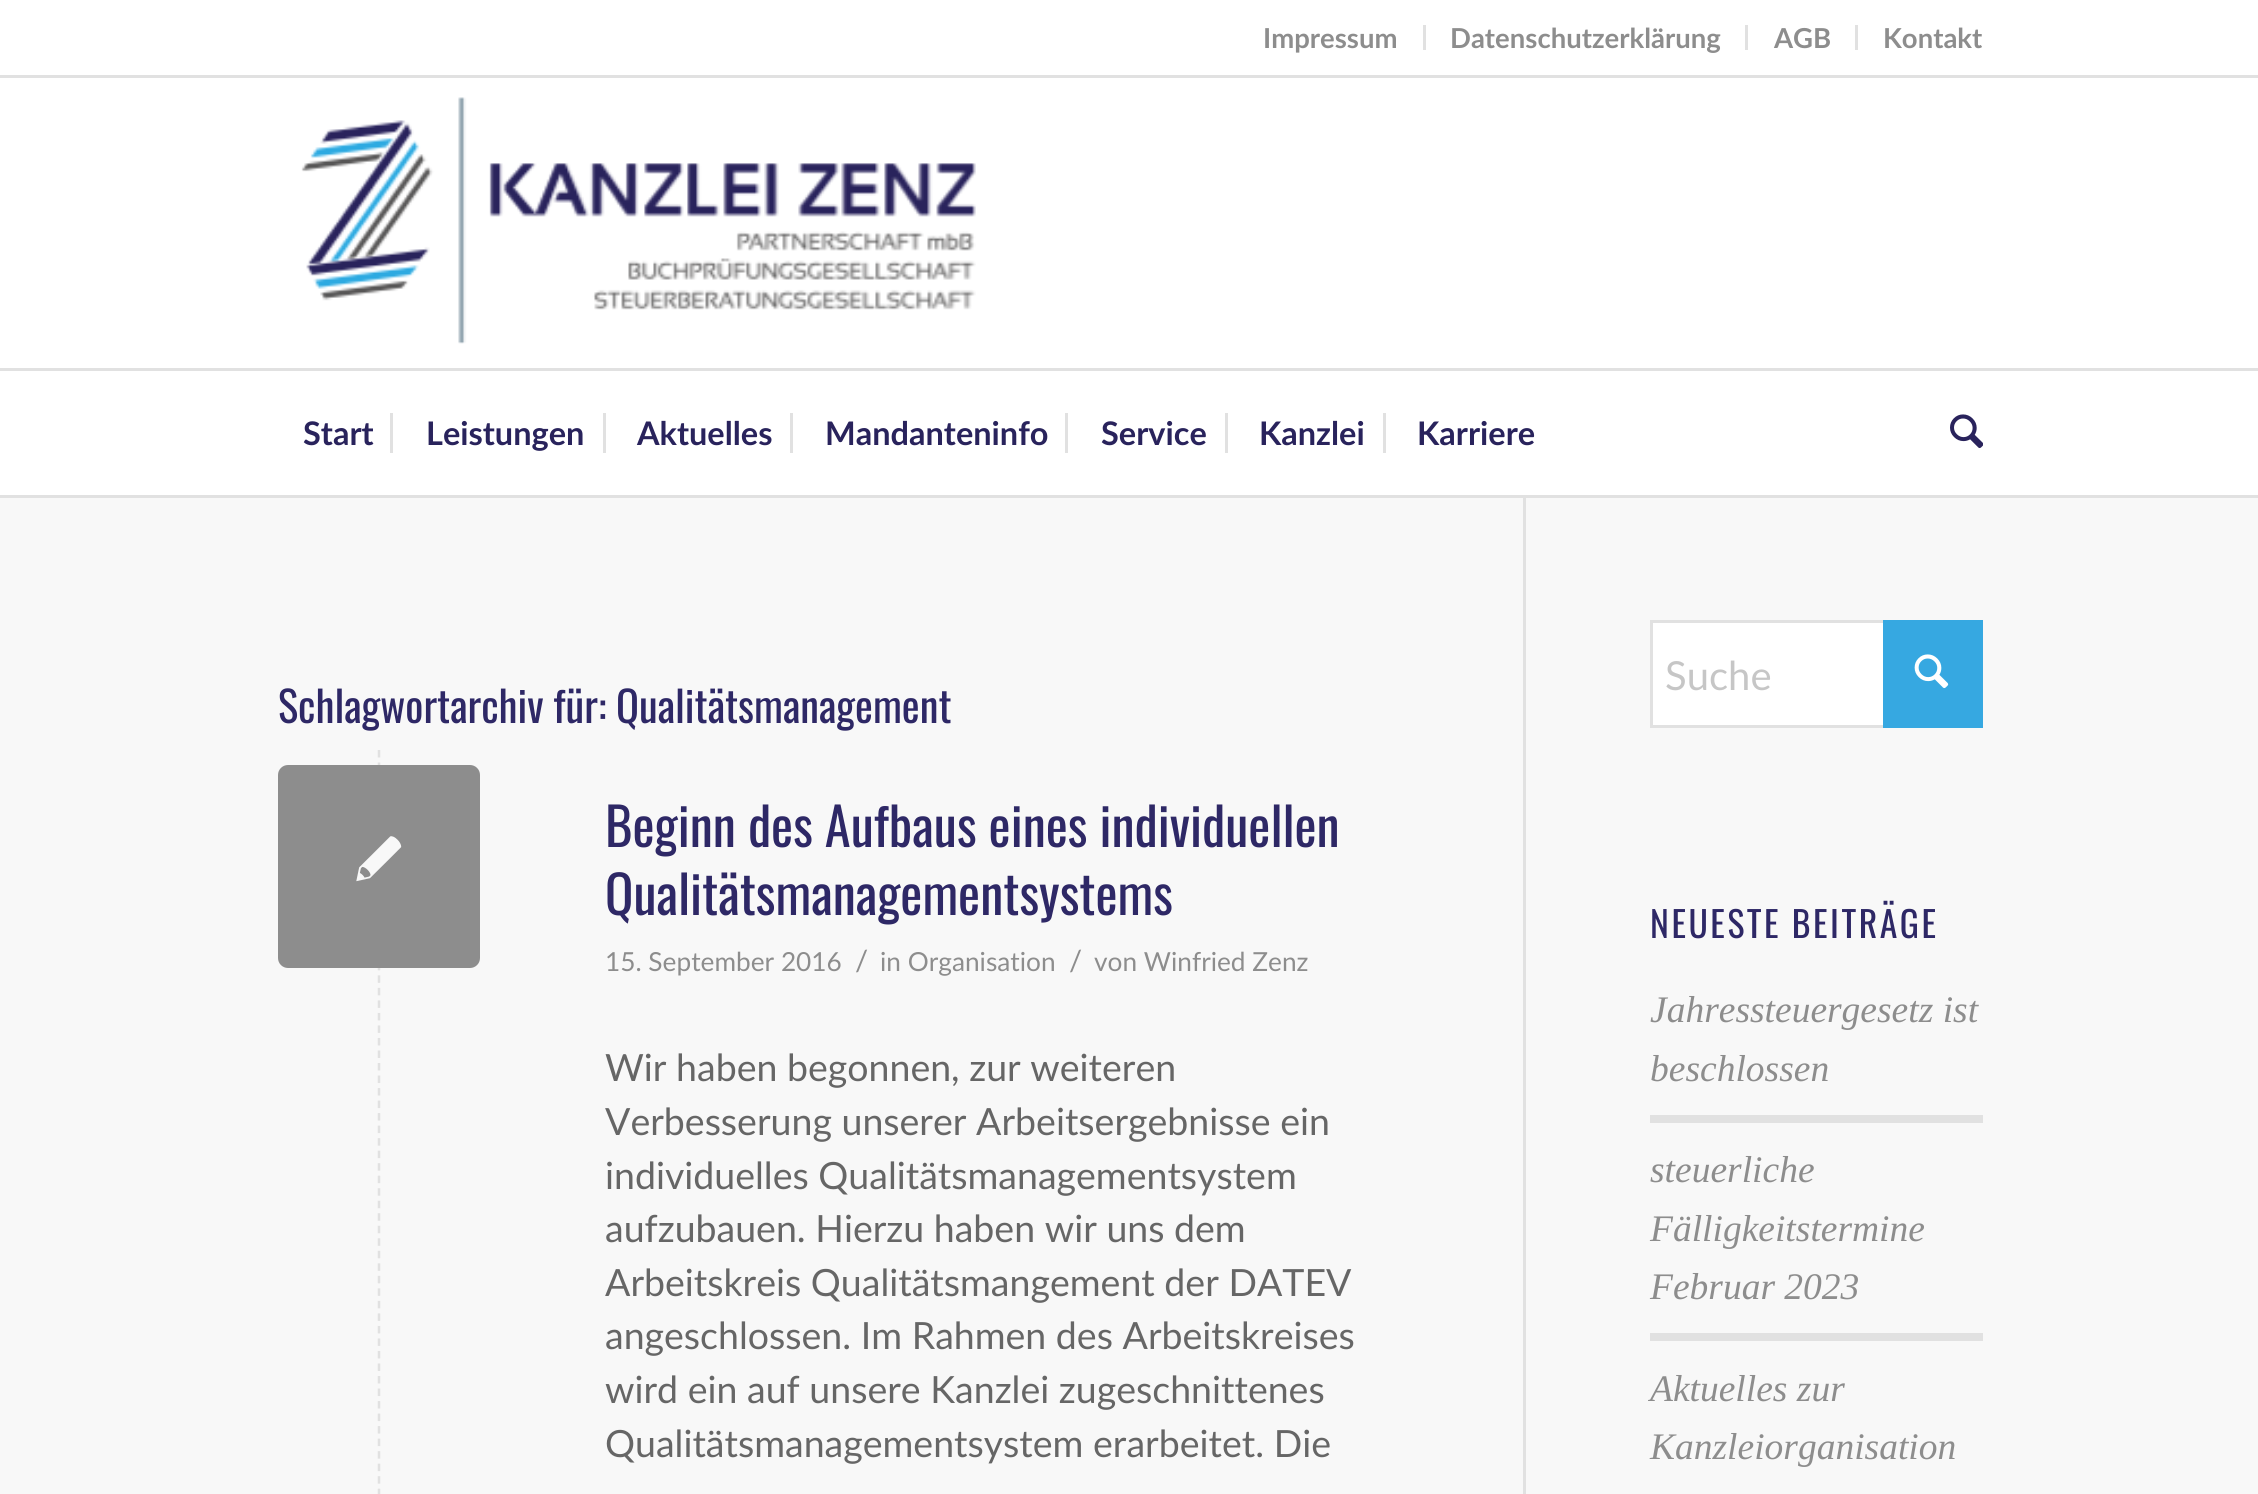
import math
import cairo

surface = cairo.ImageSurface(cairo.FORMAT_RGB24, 2258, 1494)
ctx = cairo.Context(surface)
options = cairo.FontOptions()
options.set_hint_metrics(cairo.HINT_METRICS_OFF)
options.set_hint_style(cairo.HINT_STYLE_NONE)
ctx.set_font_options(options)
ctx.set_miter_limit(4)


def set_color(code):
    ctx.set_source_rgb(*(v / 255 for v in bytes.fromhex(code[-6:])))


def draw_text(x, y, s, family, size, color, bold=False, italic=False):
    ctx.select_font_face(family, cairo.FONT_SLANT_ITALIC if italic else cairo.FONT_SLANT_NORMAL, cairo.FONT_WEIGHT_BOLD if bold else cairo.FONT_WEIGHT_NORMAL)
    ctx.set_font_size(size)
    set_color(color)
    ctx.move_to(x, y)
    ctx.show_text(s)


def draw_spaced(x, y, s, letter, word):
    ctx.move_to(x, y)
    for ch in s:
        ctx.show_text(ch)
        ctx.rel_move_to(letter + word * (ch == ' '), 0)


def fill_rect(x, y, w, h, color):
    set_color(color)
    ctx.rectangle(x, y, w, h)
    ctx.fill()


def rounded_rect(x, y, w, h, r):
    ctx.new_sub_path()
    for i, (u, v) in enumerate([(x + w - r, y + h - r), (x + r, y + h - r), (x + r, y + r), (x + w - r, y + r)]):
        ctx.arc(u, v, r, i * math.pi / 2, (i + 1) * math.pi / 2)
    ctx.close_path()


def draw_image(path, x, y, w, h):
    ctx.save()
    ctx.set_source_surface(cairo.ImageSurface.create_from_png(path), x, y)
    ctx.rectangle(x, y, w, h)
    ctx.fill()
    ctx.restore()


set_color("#f8f8f8")
ctx.paint()
fill_rect(0, 0, 2258, 75, "#ffffff")
fill_rect(0, 75, 2258, 3, "#e1e1e1")
fill_rect(1423, 25, 3, 25, "#e1e1e1")
draw_text(1263, 48, "Impressum", "Lato", 27.5, "#8d8d8d", bold=True)
fill_rect(1745, 25, 3, 25, "#e1e1e1")
draw_text(1450, 48, "Datenschutzerklärung", "Lato", 27.5, "#8d8d8d", bold=True)
fill_rect(1855, 25, 3, 25, "#e1e1e1")
draw_text(1774, 48, "AGB", "Lato", 27.5, "#8d8d8d", bold=True)
draw_text(1883, 48, "Kontakt", "Lato", 27.5, "#8d8d8d", bold=True)
fill_rect(0, 78, 2258, 417, "#ffffff")
fill_rect(1523, 495, 3, 999, "#e1e1e1")
fill_rect(0, 495, 2258, 3, "#e1e1e1")
draw_image("assets/img1.png", 301, 97, 675, 247)
fill_rect(0, 368, 2258, 3, "#e1e1e1")
draw_text(303, 445, "Start", "Lato", 32.5, "#29235c", bold=True)
draw_text(426, 445, "Leistungen", "Lato", 32.5, "#29235c", bold=True)
fill_rect(390, 413, 3, 40, "#e1e1e1")
draw_text(637, 445, "Aktuelles", "Lato", 32.5, "#29235c", bold=True)
fill_rect(603, 413, 3, 40, "#e1e1e1")
draw_text(825, 445, "Mandanteninfo", "Lato", 32.5, "#29235c", bold=True)
fill_rect(790, 413, 3, 40, "#e1e1e1")
draw_text(1101, 445, "Service", "Lato", 32.5, "#29235c", bold=True)
fill_rect(1065, 413, 3, 40, "#e1e1e1")
draw_text(1259, 445, "Kanzlei", "Lato", 32.5, "#29235c", bold=True)
fill_rect(1225, 413, 3, 40, "#e1e1e1")
draw_text(1417, 445, "Karriere", "Lato", 32.5, "#29235c", bold=True)
fill_rect(1383, 413, 3, 40, "#e1e1e1")
draw_image("assets/img2.png", 1950, 414, 33, 35)
draw_text(278, 723, "Schlagwortarchiv für: Qualitätsmanagement", "Oswald", 42.5, "#2e2866")
ctx.new_path()
ctx.move_to(379, 750)
ctx.line_to(379, 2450)
set_color("#e1e1e1")
ctx.set_line_width(2.5)
ctx.set_dash([7.5, 5.02])
ctx.stroke()
set_color("#8d8d8d")
rounded_rect(278, 765, 202, 203, 10)
ctx.fill()
draw_image("assets/img3.png", 356, 836, 46, 46)
draw_text(605, 847, "Beginn des Aufbaus eines individuellen", "Oswald", 52.5, "#2e2866")
draw_text(605, 915, "Qualitätsmanagementsystems", "Oswald", 52.5, "#2e2866")
draw_text(605, 971, "15. September 2016", "Lato", 26.25, "#8d8d8d")
draw_text(855, 971, "/", "Lato", 29, "#8d8d8d")
draw_text(880, 971, "in Organisation", "Lato", 26.25, "#8d8d8d")
draw_text(1069, 971, "/", "Lato", 29, "#8d8d8d")
draw_text(1094, 971, "von Winfried Zenz", "Lato", 26.25, "#8d8d8d")
draw_text(605, 1081, "Wir haben begonnen, zur weiteren", "Lato", 37.5, "#666666")
draw_text(605, 1135, "Verbesserung unserer Arbeitsergebnisse ein", "Lato", 37.5, "#666666")
draw_text(605, 1189, "individuelles Qualitätsmanagementsystem", "Lato", 37.5, "#666666")
draw_text(605, 1242, "aufzubauen. Hierzu haben wir uns dem", "Lato", 37.5, "#666666")
draw_text(605, 1296, "Arbeitskreis Qualitätsmangement der DATEV", "Lato", 37.5, "#666666")
draw_text(605, 1349, "angeschlossen. Im Rahmen des Arbeitskreises", "Lato", 37.5, "#666666")
draw_text(605, 1403, "wird ein auf unsere Kanzlei zugeschnittenes", "Lato", 37.5, "#666666")
draw_text(605, 1457, "Qualitätsmanagementsystem erarbeitet. Die", "Lato", 37.5, "#666666")
fill_rect(1653, 623, 230, 102, "#ffffff")
ctx.rectangle(1651.5, 621.5, 330, 105)
set_color("#e1e1e1")
ctx.set_line_width(3)
ctx.set_dash([])
ctx.stroke()
fill_rect(1883, 620, 100, 108, "#36a8e1")
draw_text(1665, 690, "Suche", "Lato", 40, "#c6c6c6")
draw_image("assets/img4.png", 1914, 654, 35, 35)
ctx.select_font_face("Oswald")
ctx.set_font_size(35.75)
set_color("#2e2866")
draw_spaced(1650, 938, "NEUESTE BEITRÄGE", 2.5, 0)
draw_text(1650, 1022, "Jahressteuergesetz ist", "Liberation Serif", 37.5, "#8d8d8d", italic=True)
draw_text(1650, 1081, "beschlossen", "Liberation Serif", 37.5, "#8d8d8d", italic=True)
fill_rect(1650, 1115, 333, 8, "#e1e1e1")
draw_text(1650, 1182, "steuerliche", "Liberation Serif", 37.5, "#8d8d8d", italic=True)
draw_text(1650, 1241, "Fälligkeitstermine", "Liberation Serif", 37.5, "#8d8d8d", italic=True)
draw_text(1650, 1299, "Februar 2023", "Liberation Serif", 37.5, "#8d8d8d", italic=True)
fill_rect(1650, 1333, 333, 8, "#e1e1e1")
draw_text(1650, 1401, "Aktuelles zur", "Liberation Serif", 37.5, "#8d8d8d", italic=True)
draw_text(1650, 1459, "Kanzleiorganisation", "Liberation Serif", 37.5, "#8d8d8d", italic=True)
surface.write_to_png("output.png")
